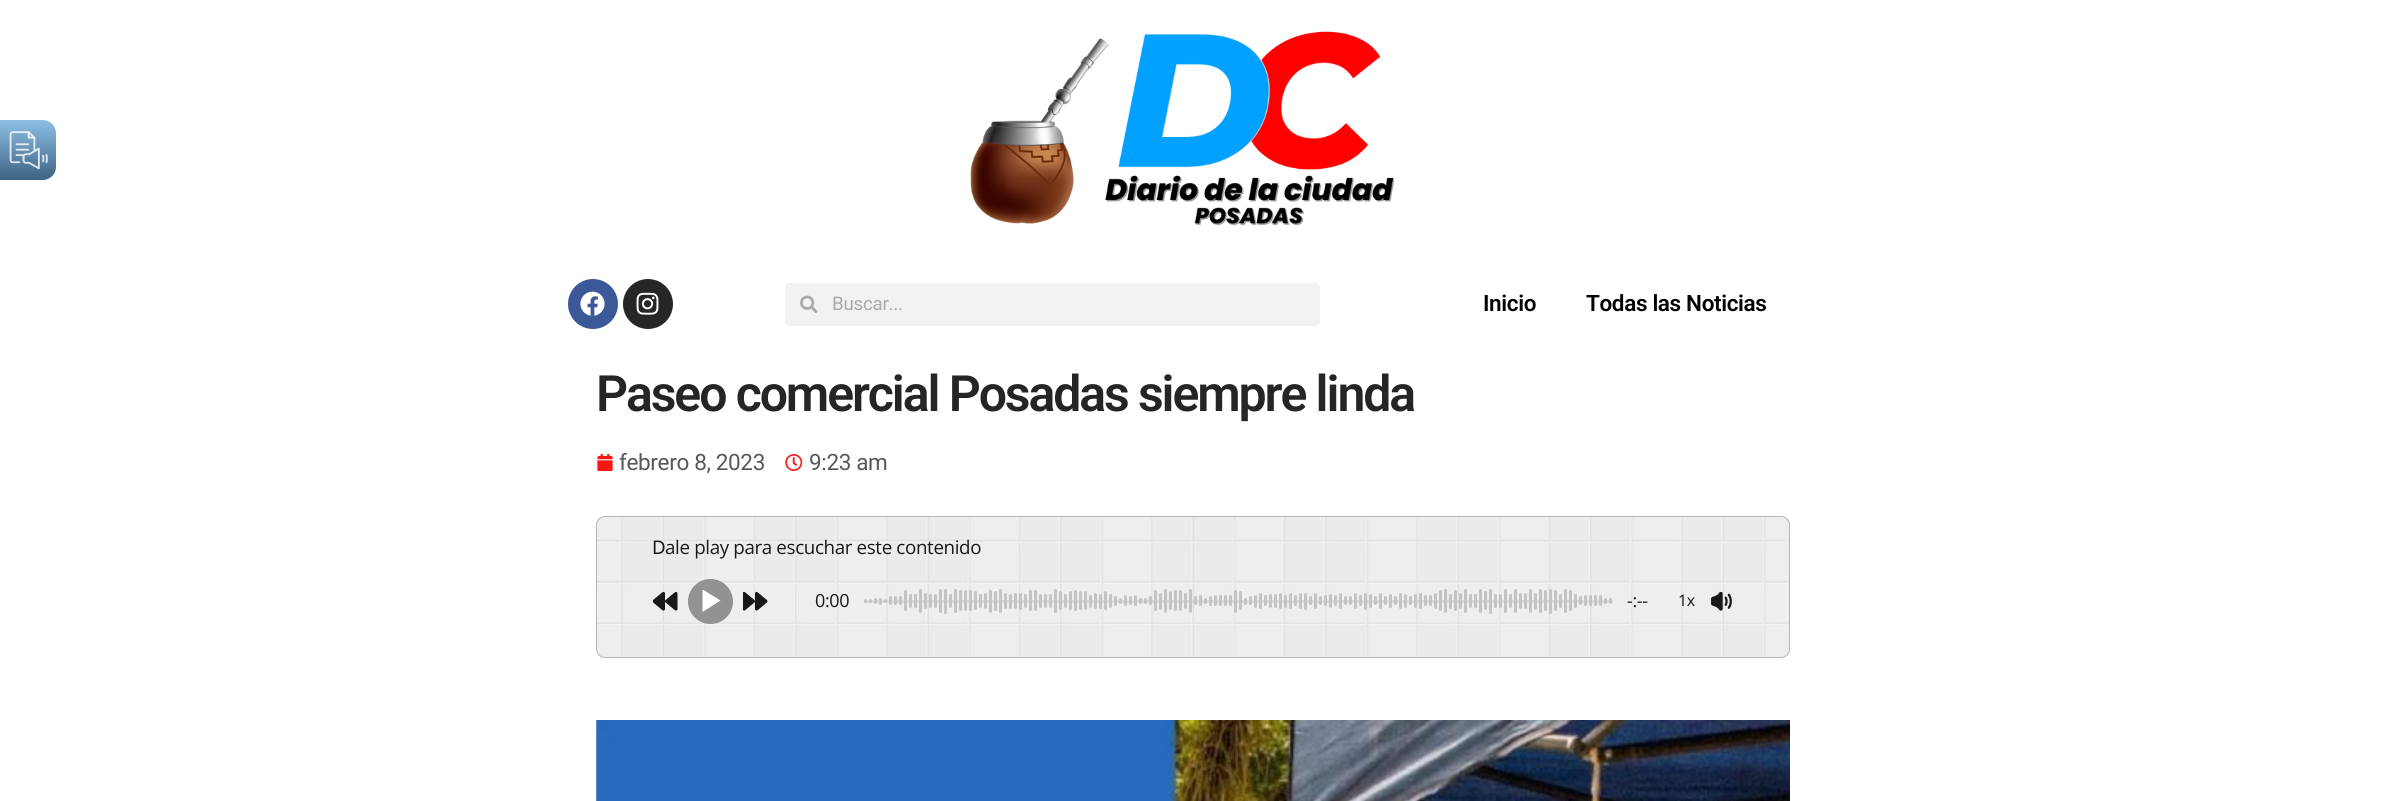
import math
import cairo

surface = cairo.ImageSurface(cairo.FORMAT_RGB24, 2385, 801)
ctx = cairo.Context(surface)
options = cairo.FontOptions()
options.set_hint_metrics(cairo.HINT_METRICS_OFF)
options.set_hint_style(cairo.HINT_STYLE_NONE)
ctx.set_font_options(options)
ctx.set_miter_limit(4)


def set_color(code):
    ctx.set_source_rgb(*(v / 255 for v in bytes.fromhex(code[-6:])))


def draw_spaced(x, y, s, letter, word):
    ctx.move_to(x, y)
    for ch in s:
        ctx.show_text(ch)
        ctx.rel_move_to(letter + word * (ch == ' '), 0)


def rounded_rect(x, y, w, h, r):
    ctx.new_sub_path()
    for i, (u, v) in enumerate([(x + w - r, y + h - r), (x + r, y + h - r), (x + r, y + r), (x + w - r, y + r)]):
        ctx.arc(u, v, r, i * math.pi / 2, (i + 1) * math.pi / 2)
    ctx.close_path()


def draw_image(path, x, y, w, h):
    ctx.save()
    ctx.set_source_surface(cairo.ImageSurface.create_from_png(path), x, y)
    ctx.rectangle(x, y, w, h)
    ctx.fill()
    ctx.restore()


set_color("#ffffff")
ctx.paint()
gradient = cairo.LinearGradient(28, 120, 28, 180)
gradient.add_color_stop_rgba(0, 0.561, 0.749, 0.902, 1)
gradient.add_color_stop_rgba(1, 0.235, 0.388, 0.51, 1)
ctx.set_source(gradient)
ctx.new_path()
ctx.move_to(0, 120)
ctx.line_to(43, 120)
ctx.curve_to(50, 120, 56, 126, 56, 133)
ctx.line_to(56, 167)
ctx.curve_to(56, 174, 50, 180, 43, 180)
ctx.line_to(0, 180)
ctx.close_path()
ctx.fill()
draw_image("assets/img1.png", 9, 131, 39, 39)
draw_image("assets/img2.png", 970, 31, 425, 195)
set_color("#3b5998")
ctx.arc(593, 304, 25, 0, 2 * math.pi)
ctx.fill()
draw_image("assets/img3.png", 580, 291, 25, 25)
set_color("#262626")
ctx.arc(648, 304, 25, 0, 2 * math.pi)
ctx.fill()
draw_image("assets/img4.png", 636, 292, 23, 23)
set_color("#f1f2f3")
rounded_rect(785, 283, 535, 43, 4)
ctx.fill()
draw_image("assets/img5.png", 800, 295, 18, 18)
ctx.select_font_face("Roboto")
ctx.set_font_size(18.75)
set_color("#aaaaaa")
draw_spaced(832, 310, "Buscar...", -0.25, 0)
ctx.select_font_face("Roboto SemiBold")
ctx.set_font_size(22.5)
set_color("#000000")
draw_spaced(1483, 311, "Inicio", -0.35, 0)
draw_spaced(1586, 311, "Todas las Noticias", -0.35, 0)
ctx.set_font_size(50)
set_color("#252525")
draw_spaced(596, 411, "Paseo comercial Posadas siempre linda", -2.1, 0)
draw_image("assets/img6.png", 597, 454, 16, 17)
ctx.select_font_face("Roboto")
ctx.set_font_size(22.5)
set_color("#54595f")
draw_spaced(619, 470, "febrero 8, 2023", -0.35, 0)
draw_image("assets/img7.png", 785, 454, 18, 17)
draw_spaced(809, 470, "9:23 am", -0.35, 0)
draw_image("assets/img8.png", 596, 516, 1194, 142)
ctx.set_source_rgba(0.949, 0.949, 0.949, 0.38)
rounded_rect(596, 516, 1194, 142, 9)
ctx.fill()
rounded_rect(596.5, 516.5, 1193, 141, 8.5)
ctx.set_source_rgba(0.537, 0.537, 0.537, 0.56)
ctx.set_line_width(1)
ctx.stroke()
ctx.select_font_face("Noto Sans")
ctx.set_font_size(18.75)
set_color("#181818")
draw_spaced(652, 554, "D", -0.35, 0)
ctx.select_font_face("Open Sans")
draw_spaced(665, 554, "ale play para escuchar este contenido", -0.35, 0)
draw_image("assets/img9.png", 653, 591, 25, 20)
set_color("#929292")
ctx.arc(710.5, 601.5, 22.5, 0, 2 * math.pi)
ctx.fill()
set_color("#ffffff")
ctx.new_path()
ctx.move_to(703.5, 590)
ctx.line_to(720.5, 600.5)
ctx.line_to(702.5, 612)
ctx.line_to(702.5, 590)
ctx.close_path()
ctx.fill()
draw_image("assets/img10.png", 743, 591, 25, 20)
ctx.set_font_size(18)
set_color("#181818")
draw_spaced(815, 607, "0:00", -0.35, 0)
ctx.set_source_rgba(0.678, 0.663, 0.663, 0.29)
ctx.rectangle(864, 600, 749, 3)
ctx.fill()
set_color("#c4c4c4")
rounded_rect(864, 599, 3, 4, 1.5)
ctx.fill()
rounded_rect(869, 599, 3, 4, 1.5)
ctx.fill()
rounded_rect(874, 598, 3, 6, 1.5)
ctx.fill()
rounded_rect(879, 598, 3, 7, 1.5)
ctx.fill()
rounded_rect(884, 599, 3, 4, 1.5)
ctx.fill()
rounded_rect(889, 596, 3, 9, 1.5)
ctx.fill()
rounded_rect(894, 596, 3, 9, 1.5)
ctx.fill()
rounded_rect(899, 596, 3, 9, 1.5)
ctx.fill()
rounded_rect(904, 590, 3, 21, 1.5)
ctx.fill()
rounded_rect(909, 594, 3, 14, 1.5)
ctx.fill()
rounded_rect(914, 594, 3, 14, 1.5)
ctx.fill()
rounded_rect(919, 589, 3, 24, 1.5)
ctx.fill()
rounded_rect(924, 593, 3, 16, 1.5)
ctx.fill()
rounded_rect(929, 594, 3, 14, 1.5)
ctx.fill()
rounded_rect(934, 594, 3, 14, 1.5)
ctx.fill()
rounded_rect(939, 589, 3, 24, 1.5)
ctx.fill()
rounded_rect(944, 589, 3, 25, 1.5)
ctx.fill()
rounded_rect(949, 594, 3, 14, 1.5)
ctx.fill()
rounded_rect(954, 589, 3, 24, 1.5)
ctx.fill()
rounded_rect(959, 590, 3, 21, 1.5)
ctx.fill()
rounded_rect(964, 590, 3, 21, 1.5)
ctx.fill()
rounded_rect(969, 590, 3, 21, 1.5)
ctx.fill()
rounded_rect(974, 591, 3, 19, 1.5)
ctx.fill()
rounded_rect(979, 594, 3, 14, 1.5)
ctx.fill()
rounded_rect(984, 593, 3, 16, 1.5)
ctx.fill()
rounded_rect(989, 590, 3, 23, 1.5)
ctx.fill()
rounded_rect(994, 591, 3, 20, 1.5)
ctx.fill()
rounded_rect(999, 589, 3, 24, 1.5)
ctx.fill()
rounded_rect(1004, 593, 3, 16, 1.5)
ctx.fill()
rounded_rect(1009, 594, 3, 15, 1.5)
ctx.fill()
rounded_rect(1014, 593, 3, 16, 1.5)
ctx.fill()
rounded_rect(1019, 593, 3, 17, 1.5)
ctx.fill()
rounded_rect(1024, 594, 3, 14, 1.5)
ctx.fill()
rounded_rect(1029, 590, 3, 21, 1.5)
ctx.fill()
rounded_rect(1034, 590, 3, 21, 1.5)
ctx.fill()
rounded_rect(1039, 594, 3, 14, 1.5)
ctx.fill()
rounded_rect(1044, 594, 3, 14, 1.5)
ctx.fill()
rounded_rect(1049, 594, 3, 14, 1.5)
ctx.fill()
rounded_rect(1054, 589, 3, 24, 1.5)
ctx.fill()
rounded_rect(1059, 591, 3, 19, 1.5)
ctx.fill()
rounded_rect(1064, 594, 3, 14, 1.5)
ctx.fill()
rounded_rect(1069, 591, 3, 19, 1.5)
ctx.fill()
rounded_rect(1074, 590, 3, 21, 1.5)
ctx.fill()
rounded_rect(1079, 591, 3, 19, 1.5)
ctx.fill()
rounded_rect(1084, 591, 3, 19, 1.5)
ctx.fill()
rounded_rect(1089, 595, 3, 13, 1.5)
ctx.fill()
rounded_rect(1094, 593, 3, 16, 1.5)
ctx.fill()
rounded_rect(1099, 594, 3, 15, 1.5)
ctx.fill()
rounded_rect(1104, 591, 3, 19, 1.5)
ctx.fill()
rounded_rect(1109, 594, 3, 14, 1.5)
ctx.fill()
rounded_rect(1114, 596, 3, 10, 1.5)
ctx.fill()
rounded_rect(1119, 598, 3, 6, 1.5)
ctx.fill()
rounded_rect(1124, 595, 3, 11, 1.5)
ctx.fill()
rounded_rect(1129, 596, 3, 9, 1.5)
ctx.fill()
rounded_rect(1134, 595, 3, 11, 1.5)
ctx.fill()
rounded_rect(1139, 598, 3, 6, 1.5)
ctx.fill()
rounded_rect(1144, 598, 3, 6, 1.5)
ctx.fill()
rounded_rect(1149, 596, 3, 9, 1.5)
ctx.fill()
rounded_rect(1154, 590, 3, 21, 1.5)
ctx.fill()
rounded_rect(1159, 593, 3, 17, 1.5)
ctx.fill()
rounded_rect(1164, 589, 3, 24, 1.5)
ctx.fill()
rounded_rect(1169, 591, 3, 19, 1.5)
ctx.fill()
rounded_rect(1174, 590, 3, 21, 1.5)
ctx.fill()
rounded_rect(1179, 590, 3, 21, 1.5)
ctx.fill()
rounded_rect(1184, 593, 3, 16, 1.5)
ctx.fill()
rounded_rect(1189, 589, 3, 24, 1.5)
ctx.fill()
rounded_rect(1194, 596, 3, 9, 1.5)
ctx.fill()
rounded_rect(1199, 595, 3, 11, 1.5)
ctx.fill()
rounded_rect(1204, 598, 3, 6, 1.5)
ctx.fill()
rounded_rect(1209, 596, 3, 10, 1.5)
ctx.fill()
rounded_rect(1214, 595, 3, 11, 1.5)
ctx.fill()
rounded_rect(1219, 595, 3, 11, 1.5)
ctx.fill()
rounded_rect(1224, 595, 3, 11, 1.5)
ctx.fill()
rounded_rect(1229, 595, 3, 11, 1.5)
ctx.fill()
rounded_rect(1234, 590, 3, 23, 1.5)
ctx.fill()
rounded_rect(1239, 591, 3, 19, 1.5)
ctx.fill()
rounded_rect(1244, 598, 3, 7, 1.5)
ctx.fill()
rounded_rect(1249, 596, 3, 9, 1.5)
ctx.fill()
rounded_rect(1254, 595, 3, 13, 1.5)
ctx.fill()
rounded_rect(1259, 593, 3, 16, 1.5)
ctx.fill()
rounded_rect(1264, 595, 3, 11, 1.5)
ctx.fill()
rounded_rect(1269, 594, 3, 14, 1.5)
ctx.fill()
rounded_rect(1274, 594, 3, 14, 1.5)
ctx.fill()
rounded_rect(1279, 593, 3, 16, 1.5)
ctx.fill()
rounded_rect(1284, 595, 3, 13, 1.5)
ctx.fill()
rounded_rect(1289, 593, 3, 16, 1.5)
ctx.fill()
rounded_rect(1294, 595, 3, 11, 1.5)
ctx.fill()
rounded_rect(1299, 593, 3, 16, 1.5)
ctx.fill()
rounded_rect(1304, 593, 3, 17, 1.5)
ctx.fill()
rounded_rect(1309, 596, 3, 9, 1.5)
ctx.fill()
rounded_rect(1314, 593, 3, 16, 1.5)
ctx.fill()
rounded_rect(1319, 596, 3, 9, 1.5)
ctx.fill()
rounded_rect(1324, 595, 3, 11, 1.5)
ctx.fill()
rounded_rect(1329, 594, 3, 14, 1.5)
ctx.fill()
rounded_rect(1334, 595, 3, 11, 1.5)
ctx.fill()
rounded_rect(1339, 593, 3, 16, 1.5)
ctx.fill()
rounded_rect(1344, 596, 3, 9, 1.5)
ctx.fill()
rounded_rect(1349, 596, 3, 9, 1.5)
ctx.fill()
rounded_rect(1354, 593, 3, 16, 1.5)
ctx.fill()
rounded_rect(1359, 595, 3, 11, 1.5)
ctx.fill()
rounded_rect(1364, 593, 3, 17, 1.5)
ctx.fill()
rounded_rect(1369, 594, 3, 14, 1.5)
ctx.fill()
rounded_rect(1374, 596, 3, 9, 1.5)
ctx.fill()
rounded_rect(1379, 593, 3, 16, 1.5)
ctx.fill()
rounded_rect(1384, 596, 3, 9, 1.5)
ctx.fill()
rounded_rect(1389, 594, 3, 14, 1.5)
ctx.fill()
rounded_rect(1394, 596, 3, 9, 1.5)
ctx.fill()
rounded_rect(1399, 593, 3, 16, 1.5)
ctx.fill()
rounded_rect(1404, 594, 3, 14, 1.5)
ctx.fill()
rounded_rect(1409, 596, 3, 9, 1.5)
ctx.fill()
rounded_rect(1414, 594, 3, 14, 1.5)
ctx.fill()
rounded_rect(1419, 593, 3, 16, 1.5)
ctx.fill()
rounded_rect(1424, 595, 3, 11, 1.5)
ctx.fill()
rounded_rect(1429, 595, 3, 11, 1.5)
ctx.fill()
rounded_rect(1434, 593, 3, 16, 1.5)
ctx.fill()
rounded_rect(1439, 590, 3, 21, 1.5)
ctx.fill()
rounded_rect(1444, 589, 3, 24, 1.5)
ctx.fill()
rounded_rect(1449, 594, 3, 15, 1.5)
ctx.fill()
rounded_rect(1454, 590, 3, 21, 1.5)
ctx.fill()
rounded_rect(1459, 593, 3, 16, 1.5)
ctx.fill()
rounded_rect(1464, 589, 3, 24, 1.5)
ctx.fill()
rounded_rect(1469, 594, 3, 14, 1.5)
ctx.fill()
rounded_rect(1474, 594, 3, 14, 1.5)
ctx.fill()
rounded_rect(1479, 589, 3, 24, 1.5)
ctx.fill()
rounded_rect(1484, 591, 3, 19, 1.5)
ctx.fill()
rounded_rect(1489, 589, 3, 25, 1.5)
ctx.fill()
rounded_rect(1494, 594, 3, 14, 1.5)
ctx.fill()
rounded_rect(1499, 594, 3, 14, 1.5)
ctx.fill()
rounded_rect(1504, 589, 3, 24, 1.5)
ctx.fill()
rounded_rect(1509, 594, 3, 14, 1.5)
ctx.fill()
rounded_rect(1514, 589, 3, 24, 1.5)
ctx.fill()
rounded_rect(1519, 593, 3, 16, 1.5)
ctx.fill()
rounded_rect(1524, 593, 3, 16, 1.5)
ctx.fill()
rounded_rect(1529, 589, 3, 24, 1.5)
ctx.fill()
rounded_rect(1534, 593, 3, 17, 1.5)
ctx.fill()
rounded_rect(1539, 589, 3, 24, 1.5)
ctx.fill()
rounded_rect(1544, 590, 3, 21, 1.5)
ctx.fill()
rounded_rect(1549, 589, 3, 25, 1.5)
ctx.fill()
rounded_rect(1554, 590, 3, 21, 1.5)
ctx.fill()
rounded_rect(1559, 594, 3, 14, 1.5)
ctx.fill()
rounded_rect(1564, 589, 3, 24, 1.5)
ctx.fill()
rounded_rect(1569, 590, 3, 21, 1.5)
ctx.fill()
rounded_rect(1574, 594, 3, 14, 1.5)
ctx.fill()
rounded_rect(1579, 596, 3, 9, 1.5)
ctx.fill()
rounded_rect(1584, 595, 3, 11, 1.5)
ctx.fill()
rounded_rect(1589, 595, 3, 11, 1.5)
ctx.fill()
rounded_rect(1594, 595, 3, 11, 1.5)
ctx.fill()
rounded_rect(1599, 595, 3, 11, 1.5)
ctx.fill()
rounded_rect(1604, 598, 3, 6, 1.5)
ctx.fill()
rounded_rect(1609, 598, 3, 6, 1.5)
ctx.fill()
set_color("#181818")
draw_spaced(1627, 607, "-:--", -0.35, 0)
ctx.set_font_size(16)
draw_spaced(1678, 606, "1x", -0.35, 0)
draw_image("assets/img11.png", 1711, 591, 21, 20)
draw_image("assets/img12.png", 596, 720, 1194, 81)
surface.write_to_png("output.png")
